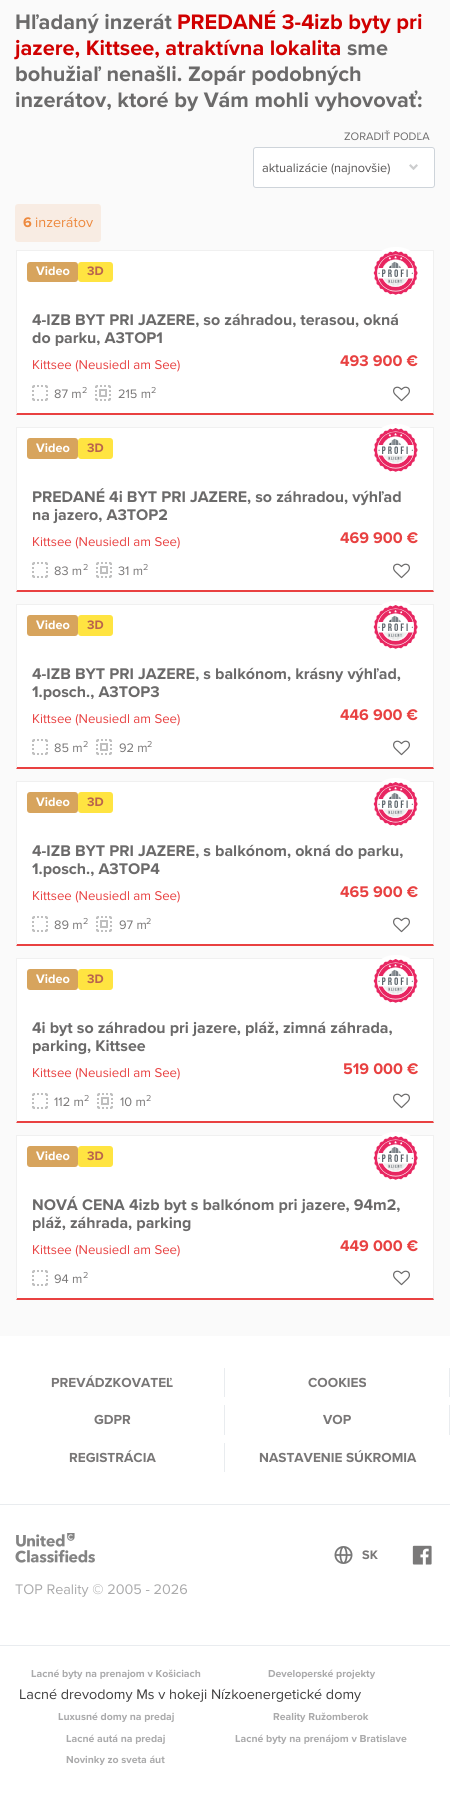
import math
import cairo

surface = cairo.ImageSurface(cairo.FORMAT_RGB24, 450, 1794)
ctx = cairo.Context(surface)
options = cairo.FontOptions()
options.set_hint_metrics(cairo.HINT_METRICS_OFF)
options.set_hint_style(cairo.HINT_STYLE_NONE)
ctx.set_font_options(options)
ctx.set_miter_limit(4)


def set_color(code):
    ctx.set_source_rgb(*(v / 255 for v in bytes.fromhex(code[-6:])))


def draw_text(x, y, s, family, size, color, bold=False, italic=False):
    ctx.select_font_face(family, cairo.FONT_SLANT_ITALIC if italic else cairo.FONT_SLANT_NORMAL, cairo.FONT_WEIGHT_BOLD if bold else cairo.FONT_WEIGHT_NORMAL)
    ctx.set_font_size(size)
    set_color(color)
    ctx.move_to(x, y)
    ctx.show_text(s)


def fill_rect(x, y, w, h, color):
    set_color(color)
    ctx.rectangle(x, y, w, h)
    ctx.fill()


def rounded_rect(x, y, w, h, r):
    ctx.new_sub_path()
    for i, (u, v) in enumerate([(x + w - r, y + h - r), (x + r, y + h - r), (x + r, y + r), (x + w - r, y + r)]):
        ctx.arc(u, v, r, i * math.pi / 2, (i + 1) * math.pi / 2)
    ctx.close_path()


def draw_image(path, x, y, w, h):
    ctx.save()
    ctx.set_source_surface(cairo.ImageSurface.create_from_png(path), x, y)
    ctx.rectangle(x, y, w, h)
    ctx.fill()
    ctx.restore()


set_color("#ffffff")
ctx.paint()
fill_rect(0, 0, 450, 1336, "#fafafa")
draw_text(15, 29, "Hľadaný inzerát", "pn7", 21.75, "#6b6a6a")
draw_text(177, 29, "PREDANÉ 3-4izb byty pri", "pn7", 21.75, "#d00000")
draw_text(15, 55, "jazere, Kittsee, atraktívna lokalita", "pn7", 21.75, "#d00000")
draw_text(347, 55, "sme", "pn7", 21.75, "#6b6a6a")
draw_text(15, 81, "bohužiaľ nenašli. Zopár podobných", "pn7", 21.75, "#6b6a6a")
draw_text(15, 107, "inzerátov, ktoré by Vám mohli vyhovovať:", "pn7", 21.75, "#6b6a6a")
draw_text(344, 140, "ZORADIŤ PODĽA", "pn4", 11.25, "#6b6a6a")
set_color("#ffffff")
rounded_rect(253, 147, 182, 41, 3)
ctx.fill()
draw_image("assets/img1.png", 409, 164, 9, 6)
rounded_rect(253.5, 147.5, 181, 40, 2.5)
set_color("#ced4da")
ctx.set_line_width(1)
ctx.stroke()
draw_text(262, 172, "aktualizácie (najnovšie)", "pn4", 12.75, "#565454")
set_color("#f8ece3")
rounded_rect(15, 204, 86, 38, 3)
ctx.fill()
draw_text(23, 227, "6", "pn7", 14.4, "#ed893e")
draw_text(35, 227, "inzerátov", "pn4", 14.4, "#ed893e")
fill_rect(17, 251, 416, 162, "#ffffff")
fill_rect(16, 250, 418, 1, "#f0f0f0")
ctx.new_path()
ctx.move_to(434, 250)
ctx.line_to(434, 415)
ctx.line_to(433, 413)
ctx.line_to(433, 251)
ctx.close_path()
ctx.fill()
set_color("#e94141")
ctx.new_path()
ctx.move_to(434, 415)
ctx.line_to(16, 415)
ctx.line_to(17, 413)
ctx.line_to(433, 413)
ctx.close_path()
ctx.fill()
set_color("#f0f0f0")
ctx.new_path()
ctx.move_to(16, 415)
ctx.line_to(16, 250)
ctx.line_to(17, 251)
ctx.line_to(17, 413)
ctx.close_path()
ctx.fill()
set_color("#d7a45d")
rounded_rect(27, 262, 51, 20, 3)
ctx.fill()
draw_text(36, 275, "Video", "pn7", 12.75, "#ffffff")
set_color("#ffe441")
rounded_rect(78, 262, 35, 20, 3)
ctx.fill()
draw_text(87, 275, "3D", "pn7", 12.75, "#b9644d")
set_color("#ffffff")
ctx.new_path()
ctx.move_to(395, 247)
ctx.line_to(397, 247)
ctx.curve_to(411, 247, 422, 258, 422, 272)
ctx.line_to(422, 299)
ctx.line_to(370, 299)
ctx.line_to(370, 272)
ctx.curve_to(370, 258, 381, 247, 395, 247)
ctx.close_path()
ctx.fill()
draw_image("assets/img2.png", 373, 251, 45, 44)
draw_text(32, 325, "4-IZB BYT PRI JAZERE, so záhradou, terasou, okná", "pn7", 16, "#6b6a6a")
draw_text(32, 343, "do parku, A3TOP1", "pn7", 16, "#6b6a6a")
draw_text(32, 369, "Kittsee (Neusiedl am See)", "pn4", 13.25, "#e84141")
draw_image("assets/img3.png", 32, 385, 16, 16)
draw_text(54, 398, "87 m", "pn4", 12.75, "#797777")
draw_text(82, 393, "2", "pn4", 9, "#797777")
draw_image("assets/img4.png", 95, 385, 16, 16)
draw_text(118, 398, "215 m", "pn4", 12.75, "#797777")
draw_text(151, 393, "2", "pn4", 9, "#797777")
draw_text(340, 366, "493 900 €", "pn7", 16, "#e84141")
draw_image("assets/img5.png", 393, 386, 17, 16)
fill_rect(17, 428, 416, 162, "#ffffff")
fill_rect(16, 427, 418, 1, "#f0f0f0")
ctx.new_path()
ctx.move_to(434, 427)
ctx.line_to(434, 592)
ctx.line_to(433, 590)
ctx.line_to(433, 428)
ctx.close_path()
ctx.fill()
set_color("#e94141")
ctx.new_path()
ctx.move_to(434, 592)
ctx.line_to(16, 592)
ctx.line_to(17, 590)
ctx.line_to(433, 590)
ctx.close_path()
ctx.fill()
set_color("#f0f0f0")
ctx.new_path()
ctx.move_to(16, 592)
ctx.line_to(16, 427)
ctx.line_to(17, 428)
ctx.line_to(17, 590)
ctx.close_path()
ctx.fill()
set_color("#d7a45d")
rounded_rect(27, 438, 51, 21, 3)
ctx.fill()
draw_text(36, 452, "Video", "pn7", 12.75, "#ffffff")
set_color("#ffe441")
rounded_rect(78, 438, 35, 21, 3)
ctx.fill()
draw_text(87, 452, "3D", "pn7", 12.75, "#b9644d")
set_color("#ffffff")
ctx.new_path()
ctx.move_to(395, 424)
ctx.line_to(397, 424)
ctx.curve_to(411, 424, 422, 435, 422, 449)
ctx.line_to(422, 476)
ctx.line_to(370, 476)
ctx.line_to(370, 449)
ctx.curve_to(370, 435, 381, 424, 395, 424)
ctx.close_path()
ctx.fill()
draw_image("assets/img2.png", 373, 428, 45, 44)
draw_text(32, 502, "PREDANÉ 4i BYT PRI JAZERE, so záhradou, výhľad", "pn7", 16, "#6b6a6a")
draw_text(32, 520, "na jazero, A3TOP2", "pn7", 16, "#6b6a6a")
draw_text(32, 546, "Kittsee (Neusiedl am See)", "pn4", 13.25, "#e84141")
draw_image("assets/img3.png", 32, 562, 16, 16)
draw_text(54, 575, "83 m", "pn4", 12.75, "#797777")
draw_text(83, 570, "2", "pn4", 9, "#797777")
draw_image("assets/img4.png", 96, 562, 16, 16)
draw_text(118, 575, "31 m", "pn4", 12.75, "#797777")
draw_text(143, 570, "2", "pn4", 9, "#797777")
draw_text(340, 543, "469 900 €", "pn7", 16, "#e84141")
draw_image("assets/img5.png", 393, 563, 17, 16)
fill_rect(17, 605, 416, 162, "#ffffff")
fill_rect(16, 604, 418, 1, "#f0f0f0")
ctx.new_path()
ctx.move_to(434, 604)
ctx.line_to(434, 769)
ctx.line_to(433, 767)
ctx.line_to(433, 605)
ctx.close_path()
ctx.fill()
set_color("#e94141")
ctx.new_path()
ctx.move_to(434, 769)
ctx.line_to(16, 769)
ctx.line_to(17, 767)
ctx.line_to(433, 767)
ctx.close_path()
ctx.fill()
set_color("#f0f0f0")
ctx.new_path()
ctx.move_to(16, 769)
ctx.line_to(16, 604)
ctx.line_to(17, 605)
ctx.line_to(17, 767)
ctx.close_path()
ctx.fill()
set_color("#d7a45d")
rounded_rect(27, 615, 51, 21, 3)
ctx.fill()
draw_text(36, 629, "Video", "pn7", 12.75, "#ffffff")
set_color("#ffe441")
rounded_rect(78, 615, 35, 21, 3)
ctx.fill()
draw_text(87, 629, "3D", "pn7", 12.75, "#b9644d")
set_color("#ffffff")
ctx.new_path()
ctx.move_to(395, 601)
ctx.line_to(397, 601)
ctx.curve_to(411, 601, 422, 612, 422, 626)
ctx.line_to(422, 653)
ctx.line_to(370, 653)
ctx.line_to(370, 626)
ctx.curve_to(370, 612, 381, 601, 395, 601)
ctx.close_path()
ctx.fill()
draw_image("assets/img2.png", 373, 605, 45, 44)
draw_text(32, 679, "4-IZB BYT PRI JAZERE, s balkónom, krásny výhľad,", "pn7", 16, "#6b6a6a")
draw_text(32, 697, "1.posch., A3TOP3", "pn7", 16, "#6b6a6a")
draw_text(32, 723, "Kittsee (Neusiedl am See)", "pn4", 13.25, "#e84141")
draw_image("assets/img3.png", 32, 739, 16, 16)
draw_text(54, 752, "85 m", "pn4", 12.75, "#797777")
draw_text(83, 747, "2", "pn4", 9, "#797777")
draw_image("assets/img4.png", 96, 739, 16, 16)
draw_text(119, 752, "92 m", "pn4", 12.75, "#797777")
draw_text(147, 747, "2", "pn4", 9, "#797777")
draw_text(340, 720, "446 900 €", "pn7", 16, "#e84141")
draw_image("assets/img5.png", 393, 740, 17, 16)
fill_rect(17, 782, 416, 162, "#ffffff")
fill_rect(16, 781, 418, 1, "#f0f0f0")
ctx.new_path()
ctx.move_to(434, 781)
ctx.line_to(434, 946)
ctx.line_to(433, 944)
ctx.line_to(433, 782)
ctx.close_path()
ctx.fill()
set_color("#e94141")
ctx.new_path()
ctx.move_to(434, 946)
ctx.line_to(16, 946)
ctx.line_to(17, 944)
ctx.line_to(433, 944)
ctx.close_path()
ctx.fill()
set_color("#f0f0f0")
ctx.new_path()
ctx.move_to(16, 946)
ctx.line_to(16, 781)
ctx.line_to(17, 782)
ctx.line_to(17, 944)
ctx.close_path()
ctx.fill()
set_color("#d7a45d")
rounded_rect(27, 792, 51, 21, 3)
ctx.fill()
draw_text(36, 806, "Video", "pn7", 12.75, "#ffffff")
set_color("#ffe441")
rounded_rect(78, 792, 35, 21, 3)
ctx.fill()
draw_text(87, 806, "3D", "pn7", 12.75, "#b9644d")
set_color("#ffffff")
ctx.new_path()
ctx.move_to(395, 778)
ctx.line_to(397, 778)
ctx.curve_to(411, 778, 422, 789, 422, 803)
ctx.line_to(422, 830)
ctx.line_to(370, 830)
ctx.line_to(370, 803)
ctx.curve_to(370, 789, 381, 778, 395, 778)
ctx.close_path()
ctx.fill()
draw_image("assets/img6.png", 373, 782, 45, 44)
draw_text(32, 856, "4-IZB BYT PRI JAZERE, s balkónom, okná do parku,", "pn7", 16, "#6b6a6a")
draw_text(32, 874, "1.posch., A3TOP4", "pn7", 16, "#6b6a6a")
draw_text(32, 900, "Kittsee (Neusiedl am See)", "pn4", 13.25, "#e84141")
draw_image("assets/img3.png", 32, 916, 16, 16)
draw_text(54, 929, "89 m", "pn4", 12.75, "#797777")
draw_text(83, 924, "2", "pn4", 9, "#797777")
draw_image("assets/img4.png", 96, 916, 16, 16)
draw_text(119, 929, "97 m", "pn4", 12.75, "#797777")
draw_text(146, 924, "2", "pn4", 9, "#797777")
draw_text(340, 897, "465 900 €", "pn7", 16, "#e84141")
draw_image("assets/img5.png", 393, 917, 17, 16)
fill_rect(17, 959, 416, 162, "#ffffff")
fill_rect(16, 958, 418, 1, "#f0f0f0")
ctx.new_path()
ctx.move_to(434, 958)
ctx.line_to(434, 1123)
ctx.line_to(433, 1121)
ctx.line_to(433, 959)
ctx.close_path()
ctx.fill()
set_color("#e94141")
ctx.new_path()
ctx.move_to(434, 1123)
ctx.line_to(16, 1123)
ctx.line_to(17, 1121)
ctx.line_to(433, 1121)
ctx.close_path()
ctx.fill()
set_color("#f0f0f0")
ctx.new_path()
ctx.move_to(16, 1123)
ctx.line_to(16, 958)
ctx.line_to(17, 959)
ctx.line_to(17, 1121)
ctx.close_path()
ctx.fill()
set_color("#d7a45d")
rounded_rect(27, 969, 51, 21, 3)
ctx.fill()
draw_text(36, 983, "Video", "pn7", 12.75, "#ffffff")
set_color("#ffe441")
rounded_rect(78, 969, 35, 21, 3)
ctx.fill()
draw_text(87, 983, "3D", "pn7", 12.75, "#b9644d")
set_color("#ffffff")
ctx.new_path()
ctx.move_to(395, 955)
ctx.line_to(397, 955)
ctx.curve_to(411, 955, 422, 966, 422, 980)
ctx.line_to(422, 1007)
ctx.line_to(370, 1007)
ctx.line_to(370, 980)
ctx.curve_to(370, 966, 381, 955, 395, 955)
ctx.close_path()
ctx.fill()
draw_image("assets/img2.png", 373, 959, 45, 44)
draw_text(32, 1033, "4i byt so záhradou pri jazere, pláž, zimná záhrada,", "pn7", 16, "#6b6a6a")
draw_text(32, 1051, "parking, Kittsee", "pn7", 16, "#6b6a6a")
draw_text(32, 1077, "Kittsee (Neusiedl am See)", "pn4", 13.25, "#e84141")
draw_image("assets/img3.png", 32, 1093, 16, 16)
draw_text(54, 1106, "112 m", "pn4", 12.75, "#797777")
draw_text(84, 1101, "2", "pn4", 9, "#797777")
draw_image("assets/img4.png", 97, 1093, 16, 16)
draw_text(120, 1106, "10 m", "pn4", 12.75, "#797777")
draw_text(146, 1101, "2", "pn4", 9, "#797777")
draw_text(343, 1074, "519 000 €", "pn7", 16, "#e84141")
draw_image("assets/img5.png", 393, 1093, 17, 16)
fill_rect(17, 1136, 416, 162, "#ffffff")
fill_rect(16, 1135, 418, 1, "#f0f0f0")
ctx.new_path()
ctx.move_to(434, 1135)
ctx.line_to(434, 1300)
ctx.line_to(433, 1298)
ctx.line_to(433, 1136)
ctx.close_path()
ctx.fill()
set_color("#e94141")
ctx.new_path()
ctx.move_to(434, 1300)
ctx.line_to(16, 1300)
ctx.line_to(17, 1298)
ctx.line_to(433, 1298)
ctx.close_path()
ctx.fill()
set_color("#f0f0f0")
ctx.new_path()
ctx.move_to(16, 1300)
ctx.line_to(16, 1135)
ctx.line_to(17, 1136)
ctx.line_to(17, 1298)
ctx.close_path()
ctx.fill()
set_color("#d7a45d")
rounded_rect(27, 1146, 51, 21, 3)
ctx.fill()
draw_text(36, 1160, "Video", "pn7", 12.75, "#ffffff")
set_color("#ffe441")
rounded_rect(78, 1146, 35, 21, 3)
ctx.fill()
draw_text(87, 1160, "3D", "pn7", 12.75, "#b9644d")
set_color("#ffffff")
ctx.new_path()
ctx.move_to(395, 1132)
ctx.line_to(397, 1132)
ctx.curve_to(411, 1132, 422, 1143, 422, 1157)
ctx.line_to(422, 1184)
ctx.line_to(370, 1184)
ctx.line_to(370, 1157)
ctx.curve_to(370, 1143, 381, 1132, 395, 1132)
ctx.close_path()
ctx.fill()
draw_image("assets/img2.png", 373, 1136, 45, 44)
draw_text(32, 1210, "NOVÁ CENA 4izb byt s balkónom pri jazere, 94m2,", "pn7", 16, "#6b6a6a")
draw_text(32, 1228, "pláž, záhrada, parking", "pn7", 16, "#6b6a6a")
draw_text(32, 1254, "Kittsee (Neusiedl am See)", "pn4", 13.25, "#e84141")
draw_image("assets/img3.png", 32, 1270, 16, 16)
draw_text(54, 1283, "94 m", "pn4", 12.75, "#797777")
draw_text(83, 1278, "2", "pn4", 9, "#797777")
draw_text(340, 1251, "449 000 €", "pn7", 16, "#e84141")
draw_image("assets/img5.png", 393, 1270, 17, 16)
fill_rect(224, 1368, 1, 29, "#e9ecef")
draw_text(51, 1387, "PREVÁDZKOVATEĽ", "pn7", 13.6, "#797777")
fill_rect(449, 1368, 1, 29, "#e9ecef")
draw_text(308, 1387, "COOKIES", "pn7", 13.6, "#797777")
fill_rect(224, 1405, 1, 30, "#e9ecef")
draw_text(94, 1424, "GDPR", "pn7", 13.6, "#797777")
fill_rect(449, 1405, 1, 30, "#e9ecef")
draw_text(323, 1424, "VOP", "pn7", 13.6, "#797777")
fill_rect(224, 1443, 1, 29, "#e9ecef")
draw_text(69, 1462, "REGISTRÁCIA", "pn7", 13.6, "#797777")
draw_text(259, 1462, "NASTAVENIE SÚKROMIA", "pn7", 13.6, "#797777")
fill_rect(0, 1504, 450, 1, "#e9ecef")
draw_image("assets/img7.png", 334, 1546, 19, 18)
draw_text(362, 1559, "SK", "pn7", 12.75, "#797777")
draw_image("assets/img8.png", 412, 1545, 20, 20)
draw_image("assets/img9.png", 15, 1533, 80, 30)
draw_text(15, 1594, "TOP Reality © 2005 - 2026", "pn4", 14.4, "#aaaaab")
fill_rect(0, 1645, 450, 1, "#e9ecef")
draw_text(31, 1677, "Lacné byty na prenajom v Košiciach", "pn7", 10.5, "#aaaaab")
draw_text(268, 1677, "Developerské projekty", "pn7", 10.5, "#aaaaab")
draw_text(19, 1699, "Lacné drevodomy Ms v hokeji Nízkoenergetické domy", "pn4", 14.4, "#3f3e3e")
draw_text(58, 1720, "Luxusné domy na predaj", "pn7", 10.5, "#aaaaab")
draw_text(273, 1720, "Reality Ružomberok", "pn7", 10.5, "#aaaaab")
draw_text(66, 1742, "Lacné autá na predaj", "pn7", 10.5, "#aaaaab")
draw_text(235, 1742, "Lacné byty na prenájom v Bratislave", "pn7", 10.5, "#aaaaab")
draw_text(66, 1763, "Novinky zo sveta áut", "pn7", 10.5, "#aaaaab")
surface.write_to_png("output.png")
